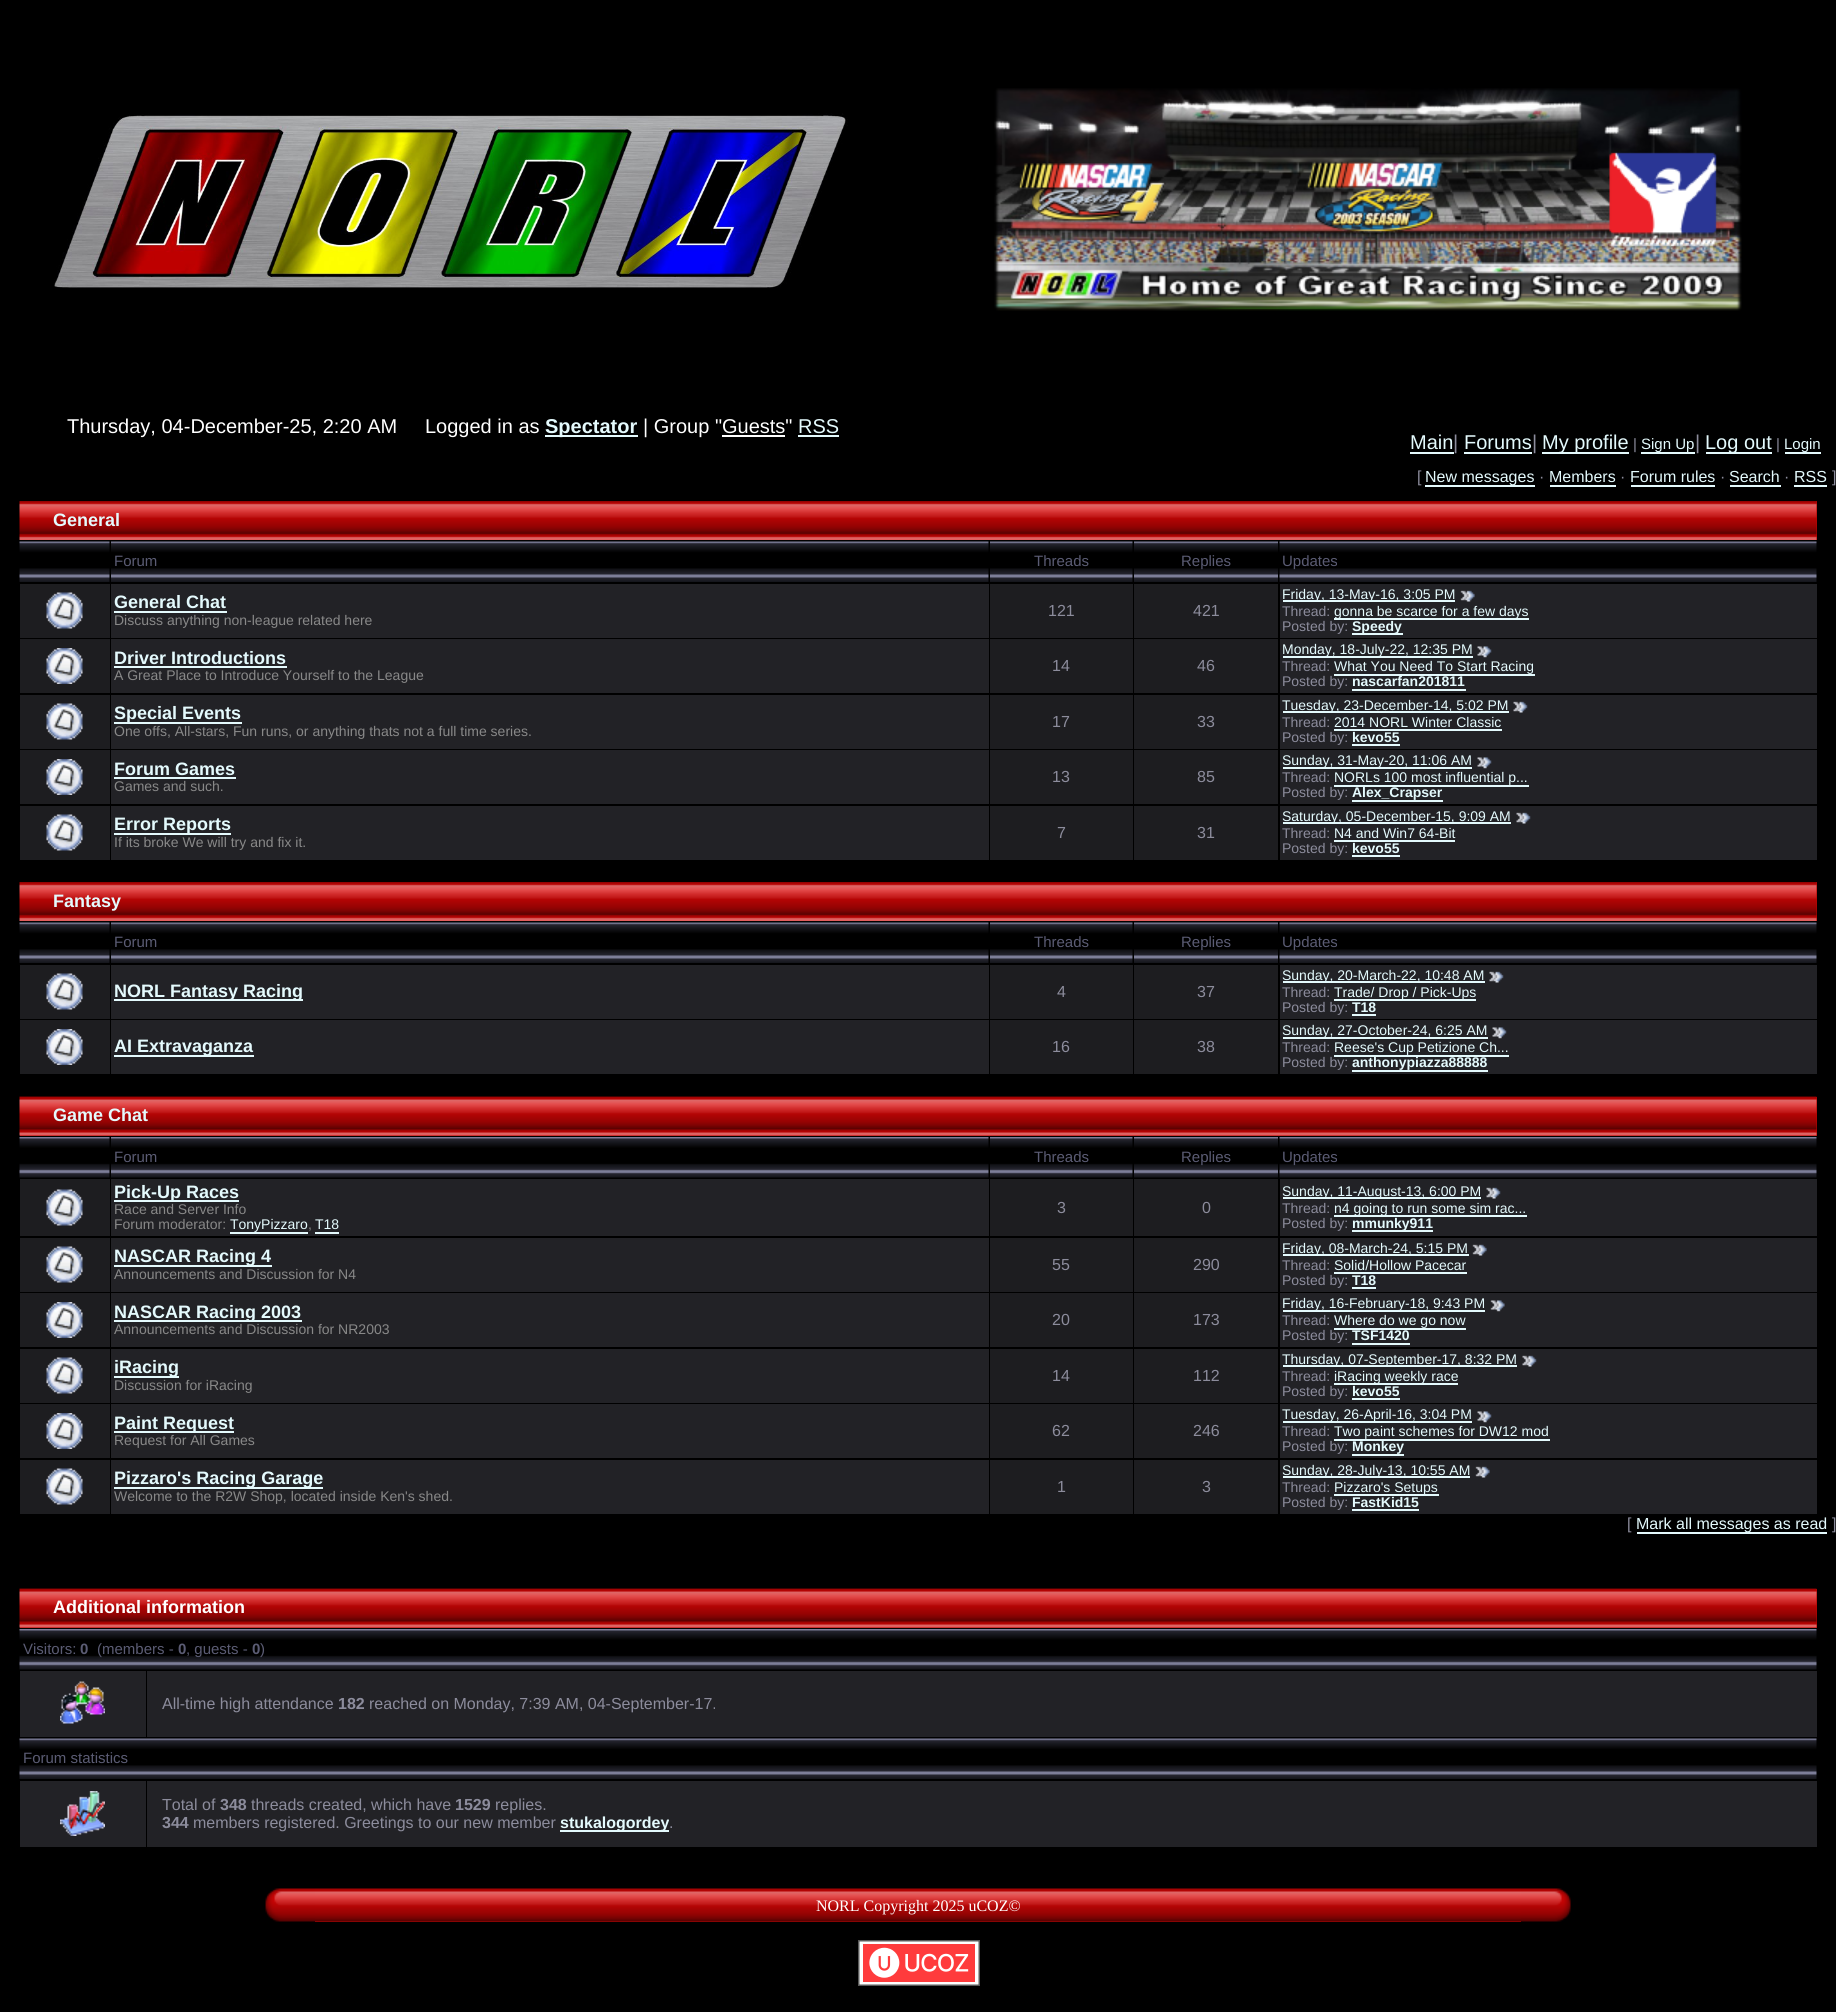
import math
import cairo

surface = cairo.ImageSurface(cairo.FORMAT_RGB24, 1836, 2012)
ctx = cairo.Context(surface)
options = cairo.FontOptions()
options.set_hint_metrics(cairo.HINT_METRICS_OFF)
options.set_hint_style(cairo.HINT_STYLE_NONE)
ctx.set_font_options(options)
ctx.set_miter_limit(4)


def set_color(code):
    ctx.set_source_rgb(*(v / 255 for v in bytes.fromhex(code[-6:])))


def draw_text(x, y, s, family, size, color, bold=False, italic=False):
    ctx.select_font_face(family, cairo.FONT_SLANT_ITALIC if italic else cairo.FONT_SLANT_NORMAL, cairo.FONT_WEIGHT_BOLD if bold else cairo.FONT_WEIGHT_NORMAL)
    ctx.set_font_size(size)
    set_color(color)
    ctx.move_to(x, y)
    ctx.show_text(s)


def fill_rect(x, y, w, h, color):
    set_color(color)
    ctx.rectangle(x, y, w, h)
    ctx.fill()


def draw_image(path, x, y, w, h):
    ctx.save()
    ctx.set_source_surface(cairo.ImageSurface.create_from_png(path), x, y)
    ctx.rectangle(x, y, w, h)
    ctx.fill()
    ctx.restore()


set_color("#000000")
ctx.paint()
draw_image("assets/img1.png", 54, 113, 794, 175)
draw_image("assets/img2.png", 994, 88, 748, 223)
draw_text(67, 433, "Thursday, 04-December-25, 2:20 AM", "Liberation Sans", 20, "#ffffff")
draw_text(425, 433, "Logged in as", "Liberation Sans", 20, "#ffffff")
fill_rect(545, 435, 93, 2, "#e4fafd")
draw_text(545, 433, "Spectator", "Liberation Sans", 20, "#e4fafd", bold=True)
draw_text(643, 433, "| Group \"Guests\"", "Liberation Sans", 20, "#ffffff")
fill_rect(722, 435, 63, 2, "#ffffff")
draw_text(798, 433, "RSS", "Liberation Sans", 20, "#e4fafd")
fill_rect(798, 435, 41, 2, "#e4fafd")
draw_text(1410, 449, "Main", "Liberation Sans", 20, "#e4fafd")
fill_rect(1410, 452, 44, 2, "#e4fafd")
draw_text(1453, 449, "|", "Liberation Sans", 20, "#8c8c9c")
draw_text(1464, 449, "Forums", "Liberation Sans", 20, "#e4fafd")
fill_rect(1464, 452, 68, 2, "#e4fafd")
draw_text(1532, 449, "|", "Liberation Sans", 20, "#8c8c9c")
fill_rect(1542, 452, 87, 2, "#e4fafd")
draw_text(1542, 449, "My profile", "Liberation Sans", 20, "#e4fafd")
draw_text(1633, 449, "|", "Liberation Sans", 15, "#8c8c9c")
fill_rect(1641, 452, 54, 2, "#e4fafd")
draw_text(1641, 449, "Sign Up", "Liberation Sans", 15, "#e4fafd")
draw_text(1695, 449, "|", "Liberation Sans", 20, "#8c8c9c")
fill_rect(1706, 452, 66, 2, "#e4fafd")
draw_text(1705, 449, "Log out", "Liberation Sans", 20, "#e4fafd")
draw_text(1776, 449, "|", "Liberation Sans", 15, "#8c8c9c")
fill_rect(1785, 452, 36, 2, "#e4fafd")
draw_text(1784, 449, "Login", "Liberation Sans", 15, "#e4fafd")
draw_text(1417, 482, "[", "Liberation Sans", 16, "#8c8c9c")
fill_rect(1425, 485, 110, 2, "#e4fafd")
draw_text(1425, 482, "New messages", "Liberation Sans", 16, "#e4fafd")
draw_text(1539, 482, "·", "Liberation Sans", 16, "#8c8c9c")
draw_text(1549, 482, "Members", "Liberation Sans", 16, "#e4fafd")
fill_rect(1550, 485, 66, 2, "#e4fafd")
draw_text(1620, 482, "·", "Liberation Sans", 16, "#8c8c9c")
draw_text(1630, 482, "Forum rules", "Liberation Sans", 16, "#e4fafd")
fill_rect(1631, 485, 84, 2, "#e4fafd")
draw_text(1720, 482, "·", "Liberation Sans", 16, "#8c8c9c")
draw_text(1729, 482, "Search", "Liberation Sans", 16, "#e4fafd")
fill_rect(1730, 485, 51, 2, "#e4fafd")
draw_text(1784, 482, "·", "Liberation Sans", 16, "#8c8c9c")
draw_text(1794, 482, "RSS", "Liberation Sans", 16, "#e4fafd")
fill_rect(1794, 485, 33, 2, "#e4fafd")
draw_text(1832, 482, "]", "Liberation Sans", 16, "#8c8c9c")
fill_rect(1816, 501, 1, 39, "#b60605")
draw_image("assets/img3.png", 19, 501, 1798, 39)
draw_text(53, 526, "General", "Liberation Sans", 18, "#e4fafd", bold=True)
draw_image("assets/img4.png", 19, 541, 91, 41)
draw_image("assets/img5.png", 111, 541, 878, 41)
draw_text(114, 566, "Forum", "Liberation Sans", 15, "#5b5c74")
draw_image("assets/img6.png", 990, 541, 143, 41)
draw_text(1034, 566, "Threads", "Liberation Sans", 15, "#5b5c74")
draw_image("assets/img7.png", 1134, 541, 144, 41)
draw_text(1181, 566, "Replies", "Liberation Sans", 15, "#5b5c74")
draw_image("assets/img8.png", 1279, 541, 538, 41)
draw_text(1282, 566, "Updates", "Liberation Sans", 15, "#5b5c74")
fill_rect(20, 584, 90, 54, "#1d1d20")
draw_image("assets/img9.png", 46, 592, 37, 37)
fill_rect(111, 584, 878, 54, "#222226")
draw_text(114, 608, "General Chat", "Liberation Sans", 18, "#e4fafd", bold=True)
fill_rect(114, 611, 113, 2, "#e4fafd")
draw_text(114, 625, "Discuss anything non-league related here", "Liberation Sans", 14, "#888888")
fill_rect(990, 584, 143, 54, "#1d1d20")
draw_text(1048, 616, "121", "Liberation Sans", 16, "#8c8c9c")
fill_rect(1134, 584, 144, 54, "#1d1d20")
draw_text(1193, 616, "421", "Liberation Sans", 16, "#8c8c9c")
fill_rect(1280, 584, 537, 54, "#222226")
fill_rect(1283, 600, 172, 2, "#e4fafd")
draw_text(1282, 599, "Friday, 13-May-16, 3:05 PM", "Liberation Sans", 14, "#e4fafd")
draw_image("assets/img10.png", 1460, 590, 15, 12)
draw_text(1282, 616, "Thread:", "Liberation Sans", 14, "#8c8c9c")
fill_rect(1334, 618, 195, 2, "#e4fafd")
draw_text(1334, 616, "gonna be scarce for a few days", "Liberation Sans", 14, "#e4fafd")
draw_text(1282, 631, "Posted by:", "Liberation Sans", 14, "#8c8c9c")
fill_rect(1352, 633, 51, 2, "#e4fafd")
draw_text(1352, 631, "Speedy", "Liberation Sans", 14, "#e4fafd", bold=True)
fill_rect(20, 639, 90, 54, "#1d1d20")
draw_image("assets/img11.png", 46, 648, 37, 36)
fill_rect(111, 639, 878, 54, "#222226")
draw_text(114, 664, "Driver Introductions", "Liberation Sans", 18, "#e4fafd", bold=True)
fill_rect(114, 666, 173, 2, "#e4fafd")
draw_text(114, 680, "A Great Place to Introduce Yourself to the League", "Liberation Sans", 14, "#888888")
fill_rect(990, 639, 143, 54, "#1d1d20")
draw_text(1052, 671, "14", "Liberation Sans", 16, "#8c8c9c")
fill_rect(1134, 639, 144, 54, "#1d1d20")
draw_text(1197, 671, "46", "Liberation Sans", 16, "#8c8c9c")
fill_rect(1280, 639, 537, 54, "#222226")
fill_rect(1283, 656, 190, 2, "#e4fafd")
draw_text(1282, 654, "Monday, 18-July-22, 12:35 PM", "Liberation Sans", 14, "#e4fafd")
draw_image("assets/img12.png", 1477, 646, 15, 12)
draw_text(1282, 671, "Thread:", "Liberation Sans", 14, "#8c8c9c")
draw_text(1334, 671, "What You Need To Start Racing", "Liberation Sans", 14, "#e4fafd")
fill_rect(1334, 674, 201, 2, "#e4fafd")
draw_text(1282, 686, "Posted by:", "Liberation Sans", 14, "#8c8c9c")
draw_text(1352, 686, "nascarfan201811", "Liberation Sans", 14, "#e4fafd", bold=True)
fill_rect(1352, 689, 114, 2, "#e4fafd")
fill_rect(20, 695, 90, 54, "#1d1d20")
draw_image("assets/img9.png", 46, 703, 37, 37)
fill_rect(111, 695, 878, 54, "#222226")
fill_rect(114, 722, 128, 2, "#e4fafd")
draw_text(114, 719, "Special Events", "Liberation Sans", 18, "#e4fafd", bold=True)
draw_text(114, 736, "One offs, All-stars, Fun runs, or anything thats not a full time series.", "Liberation Sans", 14, "#888888")
fill_rect(990, 695, 143, 54, "#1d1d20")
draw_text(1052, 727, "17", "Liberation Sans", 16, "#8c8c9c")
fill_rect(1134, 695, 144, 54, "#1d1d20")
draw_text(1197, 727, "33", "Liberation Sans", 16, "#8c8c9c")
fill_rect(1280, 695, 537, 54, "#222226")
fill_rect(1283, 711, 226, 2, "#e4fafd")
draw_text(1282, 710, "Tuesday, 23-December-14, 5:02 PM", "Liberation Sans", 14, "#e4fafd")
draw_image("assets/img13.png", 1513, 701, 15, 12)
draw_text(1282, 727, "Thread:", "Liberation Sans", 14, "#8c8c9c")
draw_text(1334, 727, "2014 NORL Winter Classic", "Liberation Sans", 14, "#e4fafd")
fill_rect(1334, 729, 168, 2, "#e4fafd")
draw_text(1282, 742, "Posted by:", "Liberation Sans", 14, "#8c8c9c")
draw_text(1352, 742, "kevo55", "Liberation Sans", 14, "#e4fafd", bold=True)
fill_rect(1352, 744, 48, 2, "#e4fafd")
fill_rect(20, 750, 90, 54, "#1d1d20")
draw_image("assets/img11.png", 46, 759, 37, 36)
fill_rect(111, 750, 878, 54, "#222226")
draw_text(114, 775, "Forum Games", "Liberation Sans", 18, "#e4fafd", bold=True)
fill_rect(114, 777, 122, 2, "#e4fafd")
draw_text(114, 791, "Games and such.", "Liberation Sans", 14, "#888888")
fill_rect(990, 750, 143, 54, "#1d1d20")
draw_text(1052, 782, "13", "Liberation Sans", 16, "#8c8c9c")
fill_rect(1134, 750, 144, 54, "#1d1d20")
draw_text(1197, 782, "85", "Liberation Sans", 16, "#8c8c9c")
fill_rect(1280, 750, 537, 54, "#222226")
fill_rect(1283, 767, 189, 2, "#e4fafd")
draw_text(1282, 765, "Sunday, 31-May-20, 11:06 AM", "Liberation Sans", 14, "#e4fafd")
draw_image("assets/img12.png", 1477, 757, 15, 12)
draw_text(1282, 782, "Thread:", "Liberation Sans", 14, "#8c8c9c")
draw_text(1334, 782, "NORLs 100 most influential p...", "Liberation Sans", 14, "#e4fafd")
fill_rect(1334, 785, 195, 2, "#e4fafd")
draw_text(1282, 797, "Posted by:", "Liberation Sans", 14, "#8c8c9c")
draw_text(1352, 797, "Alex_Crapser", "Liberation Sans", 14, "#e4fafd", bold=True)
fill_rect(1352, 800, 91, 2, "#e4fafd")
fill_rect(20, 806, 90, 54, "#1d1d20")
draw_image("assets/img9.png", 46, 814, 37, 37)
fill_rect(111, 806, 878, 54, "#222226")
fill_rect(114, 833, 117, 2, "#e4fafd")
draw_text(114, 830, "Error Reports", "Liberation Sans", 18, "#e4fafd", bold=True)
draw_text(114, 847, "If its broke We will try and fix it.", "Liberation Sans", 14, "#888888")
fill_rect(990, 806, 143, 54, "#1d1d20")
draw_text(1057, 838, "7", "Liberation Sans", 16, "#8c8c9c")
fill_rect(1134, 806, 144, 54, "#1d1d20")
draw_text(1197, 838, "31", "Liberation Sans", 16, "#8c8c9c")
fill_rect(1280, 806, 537, 54, "#222226")
fill_rect(1283, 822, 228, 2, "#e4fafd")
draw_text(1282, 821, "Saturday, 05-December-15, 9:09 AM", "Liberation Sans", 14, "#e4fafd")
draw_image("assets/img14.png", 1516, 812, 15, 12)
draw_text(1282, 838, "Thread:", "Liberation Sans", 14, "#8c8c9c")
draw_text(1334, 838, "N4 and Win7 64-Bit", "Liberation Sans", 14, "#e4fafd")
fill_rect(1334, 840, 121, 2, "#e4fafd")
draw_text(1282, 853, "Posted by:", "Liberation Sans", 14, "#8c8c9c")
draw_text(1352, 853, "kevo55", "Liberation Sans", 14, "#e4fafd", bold=True)
fill_rect(1352, 855, 48, 2, "#e4fafd")
fill_rect(1816, 882, 1, 39, "#b60605")
draw_image("assets/img3.png", 19, 882, 1798, 39)
draw_text(53, 907, "Fantasy", "Liberation Sans", 18, "#e4fafd", bold=True)
draw_image("assets/img4.png", 19, 922, 91, 41)
draw_image("assets/img5.png", 111, 922, 878, 41)
draw_text(114, 947, "Forum", "Liberation Sans", 15, "#5b5c74")
draw_image("assets/img6.png", 990, 922, 143, 41)
draw_text(1034, 947, "Threads", "Liberation Sans", 15, "#5b5c74")
draw_image("assets/img7.png", 1134, 922, 144, 41)
draw_text(1181, 947, "Replies", "Liberation Sans", 15, "#5b5c74")
draw_image("assets/img8.png", 1279, 922, 538, 41)
draw_text(1282, 947, "Updates", "Liberation Sans", 15, "#5b5c74")
fill_rect(20, 965, 90, 54, "#1d1d20")
draw_image("assets/img9.png", 46, 973, 37, 37)
fill_rect(111, 965, 878, 54, "#222226")
fill_rect(114, 999, 189, 2, "#e4fafd")
draw_text(114, 997, "NORL Fantasy Racing", "Liberation Sans", 18, "#e4fafd", bold=True)
fill_rect(990, 965, 143, 54, "#1d1d20")
draw_text(1057, 997, "4", "Liberation Sans", 16, "#8c8c9c")
fill_rect(1134, 965, 144, 54, "#1d1d20")
draw_text(1197, 997, "37", "Liberation Sans", 16, "#8c8c9c")
fill_rect(1280, 965, 537, 54, "#222226")
fill_rect(1283, 981, 202, 2, "#e4fafd")
draw_text(1282, 980, "Sunday, 20-March-22, 10:48 AM", "Liberation Sans", 14, "#e4fafd")
draw_image("assets/img13.png", 1489, 971, 15, 12)
draw_text(1282, 997, "Thread:", "Liberation Sans", 14, "#8c8c9c")
fill_rect(1334, 999, 142, 2, "#e4fafd")
draw_text(1334, 997, "Trade/ Drop / Pick-Ups", "Liberation Sans", 14, "#e4fafd")
draw_text(1282, 1012, "Posted by:", "Liberation Sans", 14, "#8c8c9c")
draw_text(1352, 1012, "T18", "Liberation Sans", 14, "#e4fafd", bold=True)
fill_rect(1352, 1014, 24, 2, "#e4fafd")
fill_rect(20, 1020, 90, 54, "#1d1d20")
draw_image("assets/img11.png", 46, 1029, 37, 36)
fill_rect(111, 1020, 878, 54, "#222226")
fill_rect(114, 1055, 140, 2, "#e4fafd")
draw_text(114, 1052, "AI Extravaganza", "Liberation Sans", 18, "#e4fafd", bold=True)
fill_rect(990, 1020, 143, 54, "#1d1d20")
draw_text(1052, 1052, "16", "Liberation Sans", 16, "#8c8c9c")
fill_rect(1134, 1020, 144, 54, "#1d1d20")
draw_text(1197, 1052, "38", "Liberation Sans", 16, "#8c8c9c")
fill_rect(1280, 1020, 537, 54, "#222226")
fill_rect(1283, 1037, 205, 2, "#e4fafd")
draw_text(1282, 1035, "Sunday, 27-October-24, 6:25 AM", "Liberation Sans", 14, "#e4fafd")
draw_image("assets/img12.png", 1492, 1027, 15, 12)
draw_text(1282, 1052, "Thread:", "Liberation Sans", 14, "#8c8c9c")
draw_text(1334, 1052, "Reese's Cup Petizione Ch...", "Liberation Sans", 14, "#e4fafd")
fill_rect(1334, 1055, 175, 2, "#e4fafd")
draw_text(1282, 1067, "Posted by:", "Liberation Sans", 14, "#8c8c9c")
draw_text(1352, 1067, "anthonypiazza88888", "Liberation Sans", 14, "#e4fafd", bold=True)
fill_rect(1352, 1070, 136, 2, "#e4fafd")
fill_rect(20, 1097, 1797, 39, "#b60605")
draw_image("assets/img15.png", 19, 1096, 1798, 40)
draw_text(53, 1121, "Game Chat", "Liberation Sans", 18, "#e4fafd", bold=True)
draw_image("assets/img16.png", 19, 1137, 91, 41)
draw_image("assets/img17.png", 111, 1137, 878, 41)
draw_text(114, 1162, "Forum", "Liberation Sans", 15, "#5b5c74")
draw_image("assets/img18.png", 990, 1137, 143, 41)
draw_text(1034, 1162, "Threads", "Liberation Sans", 15, "#5b5c74")
draw_image("assets/img19.png", 1134, 1137, 144, 41)
draw_text(1181, 1162, "Replies", "Liberation Sans", 15, "#5b5c74")
draw_image("assets/img20.png", 1279, 1137, 538, 41)
draw_text(1282, 1162, "Updates", "Liberation Sans", 15, "#5b5c74")
fill_rect(20, 1179, 90, 57, "#1d1d20")
draw_image("assets/img9.png", 46, 1189, 37, 37)
fill_rect(111, 1179, 878, 57, "#222226")
fill_rect(114, 1200, 125, 2, "#e4fafd")
draw_text(114, 1198, "Pick-Up Races", "Liberation Sans", 18, "#e4fafd", bold=True)
draw_text(114, 1214, "Race and Server Info", "Liberation Sans", 14, "#888888")
draw_text(114, 1229, "Forum moderator:", "Liberation Sans", 14, "#888888")
draw_text(230, 1229, "TonyPizzaro", "Liberation Sans", 14, "#e4fafd")
fill_rect(230, 1232, 78, 2, "#e4fafd")
draw_text(308, 1229, ",", "Liberation Sans", 14, "#888888")
draw_text(315, 1229, "T18", "Liberation Sans", 14, "#e4fafd")
fill_rect(315, 1232, 24, 2, "#e4fafd")
fill_rect(990, 1179, 143, 57, "#1d1d20")
draw_text(1057, 1213, "3", "Liberation Sans", 16, "#8c8c9c")
fill_rect(1134, 1179, 144, 57, "#1d1d20")
draw_text(1202, 1213, "0", "Liberation Sans", 16, "#8c8c9c")
fill_rect(1280, 1179, 537, 57, "#222226")
fill_rect(1283, 1197, 198, 2, "#e4fafd")
draw_text(1282, 1196, "Sunday, 11-August-13, 6:00 PM", "Liberation Sans", 14, "#e4fafd")
draw_image("assets/img13.png", 1486, 1187, 15, 12)
draw_text(1282, 1213, "Thread:", "Liberation Sans", 14, "#8c8c9c")
fill_rect(1334, 1215, 193, 2, "#e4fafd")
draw_text(1334, 1213, "n4 going to run some sim rac...", "Liberation Sans", 14, "#e4fafd")
draw_text(1282, 1228, "Posted by:", "Liberation Sans", 14, "#8c8c9c")
fill_rect(1352, 1230, 81, 2, "#e4fafd")
draw_text(1352, 1228, "mmunky911", "Liberation Sans", 14, "#e4fafd", bold=True)
fill_rect(20, 1238, 90, 54, "#1d1d20")
draw_image("assets/img9.png", 46, 1246, 37, 37)
fill_rect(111, 1238, 878, 54, "#222226")
fill_rect(114, 1265, 158, 2, "#e4fafd")
draw_text(114, 1262, "NASCAR Racing 4", "Liberation Sans", 18, "#e4fafd", bold=True)
draw_text(114, 1279, "Announcements and Discussion for N4", "Liberation Sans", 14, "#888888")
fill_rect(990, 1238, 143, 54, "#1d1d20")
draw_text(1052, 1270, "55", "Liberation Sans", 16, "#8c8c9c")
fill_rect(1134, 1238, 144, 54, "#1d1d20")
draw_text(1193, 1270, "290", "Liberation Sans", 16, "#8c8c9c")
fill_rect(1280, 1238, 537, 54, "#222226")
fill_rect(1283, 1254, 186, 2, "#e4fafd")
draw_text(1282, 1253, "Friday, 08-March-24, 5:15 PM", "Liberation Sans", 14, "#e4fafd")
draw_image("assets/img10.png", 1472, 1244, 15, 12)
draw_text(1282, 1270, "Thread:", "Liberation Sans", 14, "#8c8c9c")
draw_text(1334, 1270, "Solid/Hollow Pacecar", "Liberation Sans", 14, "#e4fafd")
fill_rect(1334, 1272, 133, 2, "#e4fafd")
draw_text(1282, 1285, "Posted by:", "Liberation Sans", 14, "#8c8c9c")
draw_text(1352, 1285, "T18", "Liberation Sans", 14, "#e4fafd", bold=True)
fill_rect(1352, 1287, 24, 2, "#e4fafd")
fill_rect(20, 1293, 90, 54, "#1d1d20")
draw_image("assets/img11.png", 46, 1302, 37, 36)
fill_rect(111, 1293, 878, 54, "#222226")
fill_rect(114, 1320, 188, 2, "#e4fafd")
draw_text(114, 1318, "NASCAR Racing 2003", "Liberation Sans", 18, "#e4fafd", bold=True)
draw_text(114, 1334, "Announcements and Discussion for NR2003", "Liberation Sans", 14, "#888888")
fill_rect(990, 1293, 143, 54, "#1d1d20")
draw_text(1052, 1325, "20", "Liberation Sans", 16, "#8c8c9c")
fill_rect(1134, 1293, 144, 54, "#1d1d20")
draw_text(1193, 1325, "173", "Liberation Sans", 16, "#8c8c9c")
fill_rect(1280, 1293, 537, 54, "#222226")
fill_rect(1283, 1310, 202, 2, "#e4fafd")
draw_text(1282, 1308, "Friday, 16-February-18, 9:43 PM", "Liberation Sans", 14, "#e4fafd")
draw_image("assets/img21.png", 1490, 1300, 15, 12)
draw_text(1282, 1325, "Thread:", "Liberation Sans", 14, "#8c8c9c")
draw_text(1334, 1325, "Where do we go now", "Liberation Sans", 14, "#e4fafd")
fill_rect(1334, 1328, 132, 2, "#e4fafd")
draw_text(1282, 1340, "Posted by:", "Liberation Sans", 14, "#8c8c9c")
draw_text(1352, 1340, "TSF1420", "Liberation Sans", 14, "#e4fafd", bold=True)
fill_rect(1352, 1343, 58, 2, "#e4fafd")
fill_rect(20, 1349, 90, 54, "#1d1d20")
draw_image("assets/img9.png", 46, 1357, 37, 37)
fill_rect(111, 1349, 878, 54, "#222226")
fill_rect(114, 1376, 65, 2, "#e4fafd")
draw_text(114, 1373, "iRacing", "Liberation Sans", 18, "#e4fafd", bold=True)
draw_text(114, 1390, "Discussion for iRacing", "Liberation Sans", 14, "#888888")
fill_rect(990, 1349, 143, 54, "#1d1d20")
draw_text(1052, 1381, "14", "Liberation Sans", 16, "#8c8c9c")
fill_rect(1134, 1349, 144, 54, "#1d1d20")
draw_text(1193, 1381, "112", "Liberation Sans", 16, "#8c8c9c")
fill_rect(1280, 1349, 537, 54, "#222226")
fill_rect(1283, 1365, 234, 2, "#e4fafd")
draw_text(1282, 1364, "Thursday, 07-September-17, 8:32 PM", "Liberation Sans", 14, "#e4fafd")
draw_image("assets/img22.png", 1522, 1355, 15, 12)
draw_text(1282, 1381, "Thread:", "Liberation Sans", 14, "#8c8c9c")
fill_rect(1334, 1383, 124, 2, "#e4fafd")
draw_text(1334, 1381, "iRacing weekly race", "Liberation Sans", 14, "#e4fafd")
draw_text(1282, 1396, "Posted by:", "Liberation Sans", 14, "#8c8c9c")
draw_text(1352, 1396, "kevo55", "Liberation Sans", 14, "#e4fafd", bold=True)
fill_rect(1352, 1398, 48, 2, "#e4fafd")
fill_rect(20, 1404, 90, 54, "#1d1d20")
draw_image("assets/img11.png", 46, 1413, 37, 36)
fill_rect(111, 1404, 878, 54, "#222226")
fill_rect(114, 1431, 120, 2, "#e4fafd")
draw_text(114, 1429, "Paint Request", "Liberation Sans", 18, "#e4fafd", bold=True)
draw_text(114, 1445, "Request for All Games", "Liberation Sans", 14, "#888888")
fill_rect(990, 1404, 143, 54, "#1d1d20")
draw_text(1052, 1436, "62", "Liberation Sans", 16, "#8c8c9c")
fill_rect(1134, 1404, 144, 54, "#1d1d20")
draw_text(1193, 1436, "246", "Liberation Sans", 16, "#8c8c9c")
fill_rect(1280, 1404, 537, 54, "#222226")
fill_rect(1283, 1421, 189, 2, "#e4fafd")
draw_text(1282, 1419, "Tuesday, 26-April-16, 3:04 PM", "Liberation Sans", 14, "#e4fafd")
draw_image("assets/img12.png", 1477, 1411, 15, 12)
draw_text(1282, 1436, "Thread:", "Liberation Sans", 14, "#8c8c9c")
draw_text(1334, 1436, "Two paint schemes for DW12 mod", "Liberation Sans", 14, "#e4fafd")
fill_rect(1334, 1439, 216, 2, "#e4fafd")
draw_text(1282, 1451, "Posted by:", "Liberation Sans", 14, "#8c8c9c")
draw_text(1352, 1451, "Monkey", "Liberation Sans", 14, "#e4fafd", bold=True)
fill_rect(1352, 1454, 52, 2, "#e4fafd")
fill_rect(20, 1460, 90, 54, "#1d1d20")
draw_image("assets/img9.png", 46, 1468, 37, 37)
fill_rect(111, 1460, 878, 54, "#222226")
fill_rect(114, 1487, 209, 2, "#e4fafd")
draw_text(114, 1484, "Pizzaro's Racing Garage", "Liberation Sans", 18, "#e4fafd", bold=True)
draw_text(114, 1501, "Welcome to the R2W Shop, located inside Ken's shed.", "Liberation Sans", 14, "#888888")
fill_rect(990, 1460, 143, 54, "#1d1d20")
draw_text(1057, 1492, "1", "Liberation Sans", 16, "#8c8c9c")
fill_rect(1134, 1460, 144, 54, "#1d1d20")
draw_text(1202, 1492, "3", "Liberation Sans", 16, "#8c8c9c")
fill_rect(1280, 1460, 537, 54, "#222226")
fill_rect(1283, 1476, 187, 2, "#e4fafd")
draw_text(1282, 1475, "Sunday, 28-July-13, 10:55 AM", "Liberation Sans", 14, "#e4fafd")
draw_image("assets/img10.png", 1475, 1466, 15, 12)
draw_text(1282, 1492, "Thread:", "Liberation Sans", 14, "#8c8c9c")
fill_rect(1334, 1494, 105, 2, "#e4fafd")
draw_text(1334, 1492, "Pizzaro's Setups", "Liberation Sans", 14, "#e4fafd")
draw_text(1282, 1507, "Posted by:", "Liberation Sans", 14, "#8c8c9c")
draw_text(1352, 1507, "FastKid15", "Liberation Sans", 14, "#e4fafd", bold=True)
fill_rect(1352, 1509, 67, 2, "#e4fafd")
draw_text(1627, 1529, "[", "Liberation Sans", 16, "#8c8c9c")
fill_rect(1637, 1532, 190, 2, "#e4fafd")
draw_text(1636, 1529, "Mark all messages as read", "Liberation Sans", 16, "#e4fafd")
draw_text(1832, 1529, "]", "Liberation Sans", 16, "#8c8c9c")
fill_rect(20, 1589, 1797, 39, "#b60605")
draw_image("assets/img15.png", 19, 1588, 1798, 40)
draw_text(53, 1613, "Additional information", "Liberation Sans", 18, "#ffffff", bold=True)
draw_image("assets/img23.png", 19, 1629, 1798, 41)
draw_text(23, 1654, "Visitors:", "Liberation Sans", 15, "#5b5c74")
draw_text(80, 1654, "0", "Liberation Sans", 15, "#5b5c74", bold=True)
draw_text(97, 1654, "(members -", "Liberation Sans", 15, "#5b5c74")
draw_text(178, 1654, "0", "Liberation Sans", 15, "#5b5c74", bold=True)
draw_text(186, 1654, ", guests -", "Liberation Sans", 15, "#5b5c74")
draw_text(252, 1654, "0", "Liberation Sans", 15, "#5b5c74", bold=True)
draw_text(260, 1654, ")", "Liberation Sans", 15, "#5b5c74")
fill_rect(20, 1671, 126, 66, "#222226")
draw_image("assets/img24.png", 60, 1681, 45, 43)
fill_rect(147, 1671, 1670, 66, "#222226")
draw_text(162, 1709, "All-time high attendance", "Liberation Sans", 16, "#8c8c9c")
draw_text(338, 1709, "182", "Liberation Sans", 16, "#8c8c9c", bold=True)
draw_text(369, 1709, "reached on Monday, 7:39 AM, 04-September-17.", "Liberation Sans", 16, "#8c8c9c")
draw_image("assets/img25.png", 19, 1738, 1798, 41)
draw_text(23, 1763, "Forum statistics", "Liberation Sans", 15, "#5b5c74")
fill_rect(20, 1781, 126, 66, "#222226")
draw_image("assets/img26.png", 60, 1791, 45, 45)
fill_rect(147, 1781, 1670, 66, "#222226")
draw_text(162, 1810, "Total of", "Liberation Sans", 16, "#8c8c9c")
draw_text(220, 1810, "348", "Liberation Sans", 16, "#8c8c9c", bold=True)
draw_text(251, 1810, "threads created, which have", "Liberation Sans", 16, "#8c8c9c")
draw_text(455, 1810, "1529", "Liberation Sans", 16, "#8c8c9c", bold=True)
draw_text(495, 1810, "replies.", "Liberation Sans", 16, "#8c8c9c")
draw_text(162, 1828, "344", "Liberation Sans", 16, "#8c8c9c", bold=True)
draw_text(193, 1828, "members registered. Greetings to our new member", "Liberation Sans", 16, "#8c8c9c")
fill_rect(560, 1830, 109, 2, "#e4fafd")
draw_text(560, 1828, "stukalogordey", "Liberation Sans", 16, "#e4fafd", bold=True)
draw_text(669, 1828, ".", "Liberation Sans", 16, "#8c8c9c")
draw_image("assets/img27.png", 265, 1888, 50, 34)
fill_rect(315, 1921, 1206, 1, "#b60605")
draw_image("assets/img28.png", 315, 1888, 1206, 34)
draw_text(816, 1911, "NORL Copyright 2025 uCOZ©", "Liberation Serif", 16, "#ffffff")
draw_image("assets/img29.png", 1521, 1888, 50, 34)
draw_image("assets/img30.png", 858, 1940, 122, 46)
surface.write_to_png("output.png")
